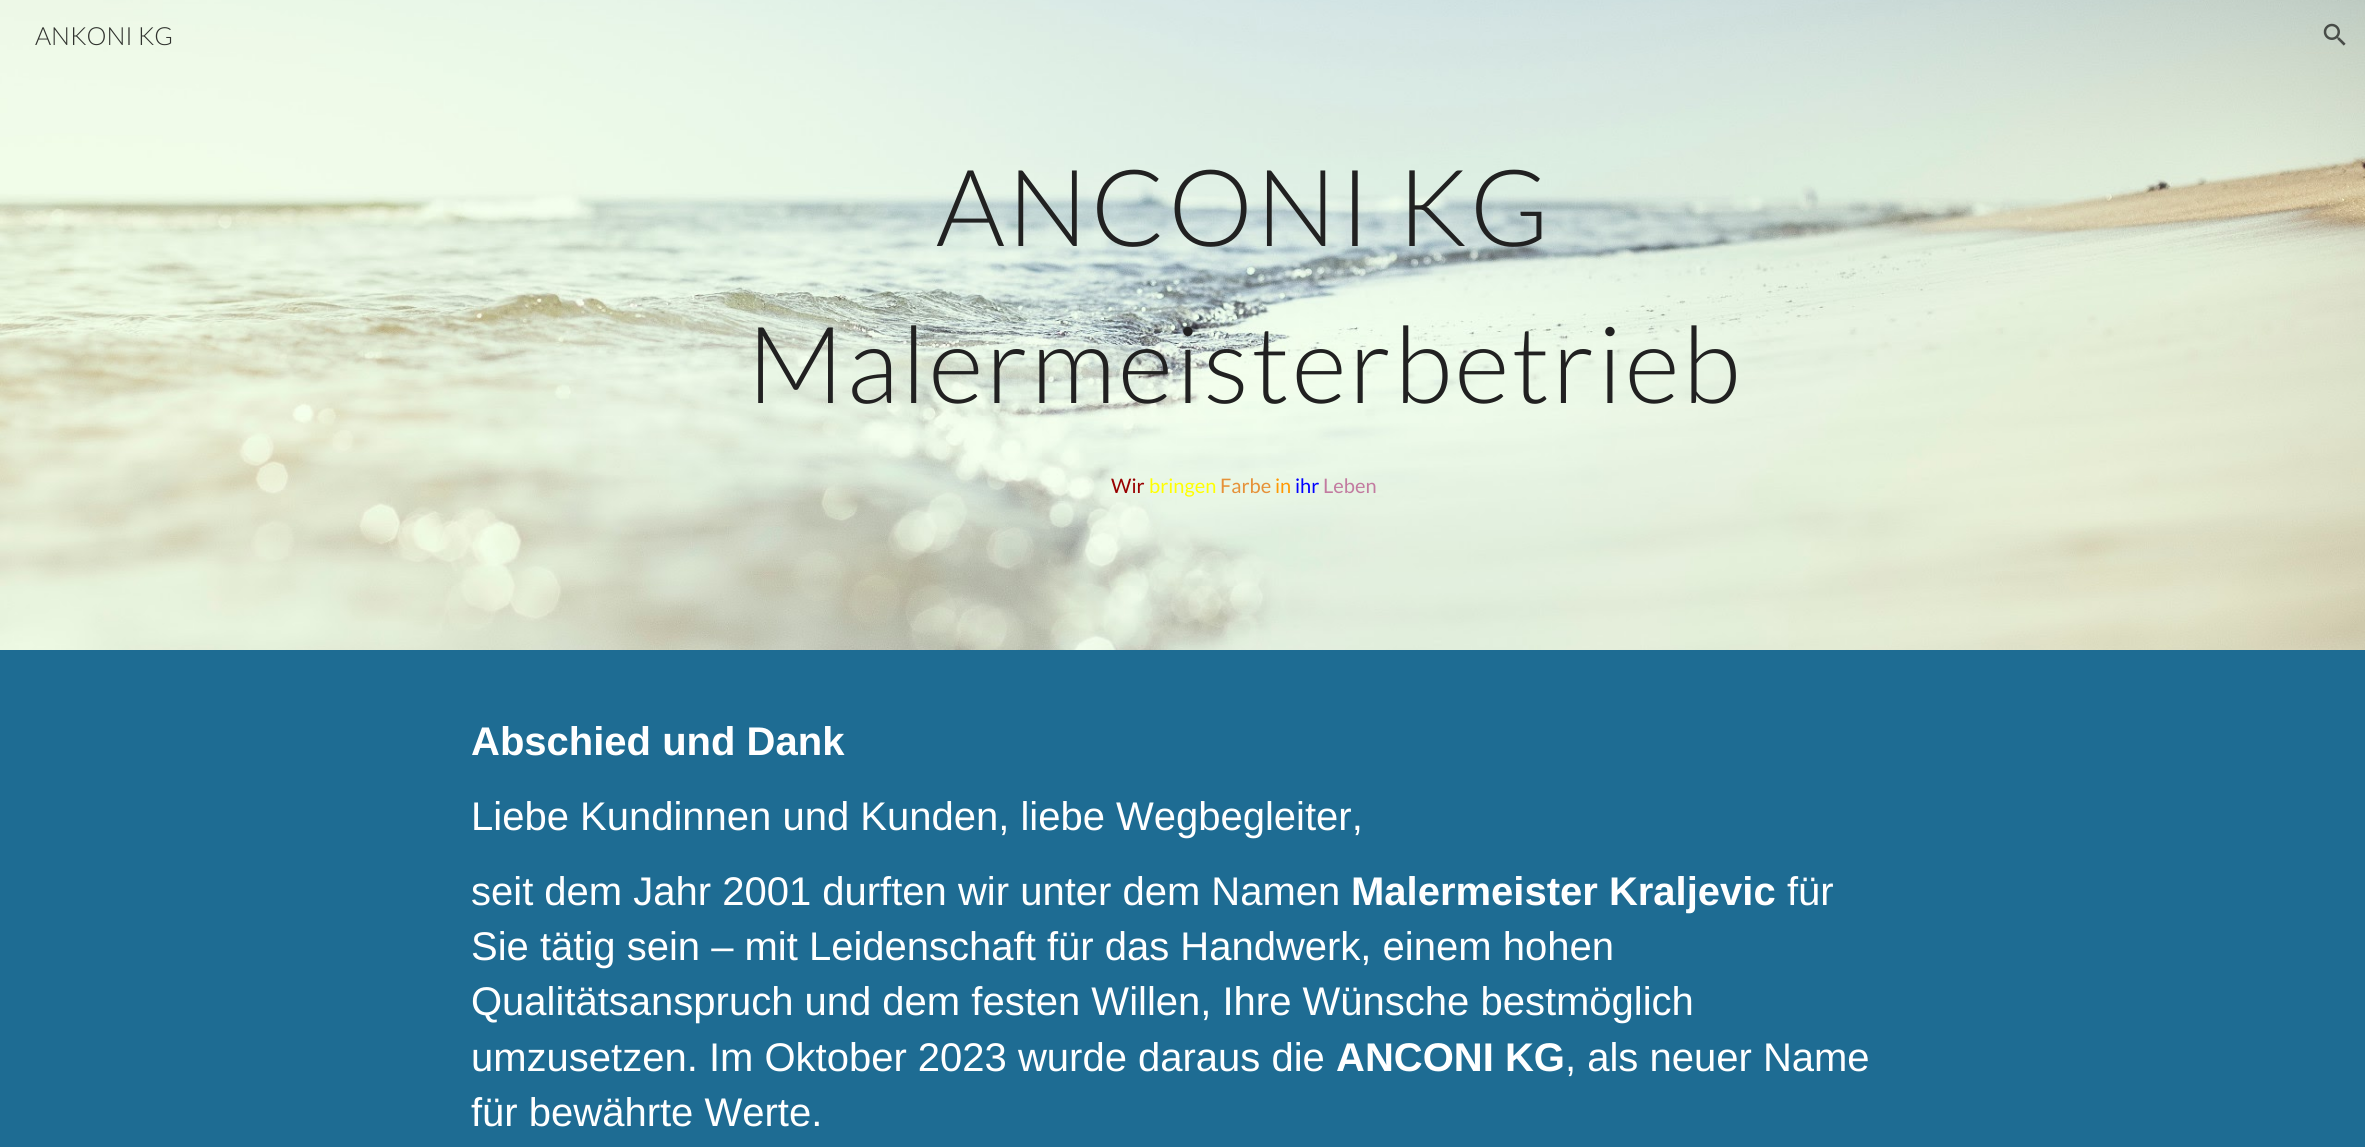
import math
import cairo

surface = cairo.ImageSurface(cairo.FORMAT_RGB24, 2365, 1147)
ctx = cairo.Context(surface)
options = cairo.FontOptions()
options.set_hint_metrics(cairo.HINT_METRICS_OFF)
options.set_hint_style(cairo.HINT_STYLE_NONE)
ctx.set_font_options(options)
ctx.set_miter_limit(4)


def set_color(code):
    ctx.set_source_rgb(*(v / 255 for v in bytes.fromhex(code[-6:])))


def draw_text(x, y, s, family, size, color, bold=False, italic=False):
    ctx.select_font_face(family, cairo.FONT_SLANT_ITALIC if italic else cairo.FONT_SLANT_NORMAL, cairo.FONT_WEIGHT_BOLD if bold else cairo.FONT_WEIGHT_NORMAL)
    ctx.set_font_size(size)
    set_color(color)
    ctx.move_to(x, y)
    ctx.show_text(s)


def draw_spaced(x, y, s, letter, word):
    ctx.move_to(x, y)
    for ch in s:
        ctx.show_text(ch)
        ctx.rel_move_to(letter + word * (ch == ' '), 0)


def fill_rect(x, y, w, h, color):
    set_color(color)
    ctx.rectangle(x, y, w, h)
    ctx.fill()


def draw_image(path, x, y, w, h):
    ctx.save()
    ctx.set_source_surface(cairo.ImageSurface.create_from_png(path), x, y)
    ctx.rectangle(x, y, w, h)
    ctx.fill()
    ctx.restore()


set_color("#ffffff")
ctx.paint()
draw_image("assets/img2.png", 0, 0, 2365, 650)
draw_text(35, 45, "ANKONI KG", "Lato Light", 25, "#30322e")
draw_image("assets/img1.png", 2323, 23, 23, 23)
ctx.set_font_size(106.75)
set_color("#212121")
draw_spaced(936, 246, "ANCONI KG", 2.5, 0)
draw_spaced(747, 403, "Malermeisterbetrieb", 2.5, 0)
draw_text(1111, 493, "Wir", "Lato", 20, "#980000")
draw_text(1149, 493, "bringen", "Lato", 20, "#ffff00")
draw_text(1220, 493, "Farbe", "Lato", 20, "#e69138")
draw_text(1275, 493, "in", "Lato", 20, "#ff9900")
draw_text(1295, 493, "ihr", "Lato", 20, "#0000ff")
draw_text(1323, 493, "Leben", "Lato", 20, "#c27ba0")
fill_rect(0, 650, 2365, 497, "#1e6c93")
draw_text(471, 755, "Abschied und Dank", "Liberation Sans", 40, "#ffffff", bold=True)
draw_text(471, 830, "Liebe Kundinnen und Kunden, liebe Wegbegleiter,", "Liberation Sans", 40, "#ffffff")
draw_text(471, 905, "seit dem Jahr 2001 durften wir unter dem Namen", "Liberation Sans", 40, "#ffffff")
draw_text(1351, 905, "Malermeister Kraljevic", "Liberation Sans", 40, "#ffffff", bold=True)
draw_text(1787, 905, "für", "Liberation Sans", 40, "#ffffff")
draw_text(471, 960, "Sie tätig sein – mit Leidenschaft für das Handwerk, einem hohen", "Liberation Sans", 40, "#ffffff")
draw_text(471, 1015, "Qualitätsanspruch und dem festen Willen, Ihre Wünsche bestmöglich", "Liberation Sans", 40, "#ffffff")
draw_text(471, 1071, "umzusetzen. Im Oktober 2023 wurde daraus die", "Liberation Sans", 40, "#ffffff")
draw_text(1336, 1071, "ANCONI KG", "Liberation Sans", 40, "#ffffff", bold=True)
draw_text(1565, 1071, ", als neuer Name", "Liberation Sans", 40, "#ffffff")
draw_text(471, 1126, "für bewährte Werte.", "Liberation Sans", 40, "#ffffff")
surface.write_to_png("output.png")
